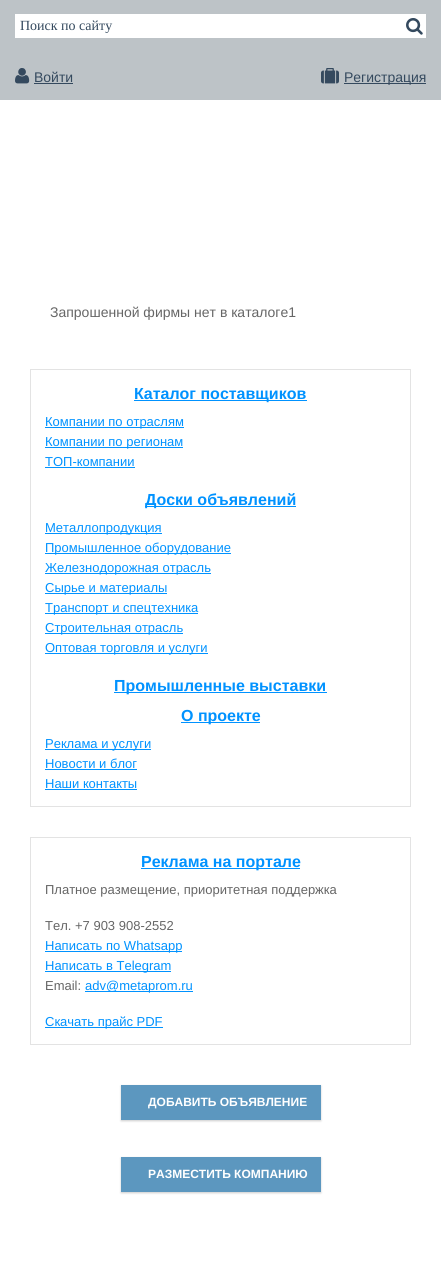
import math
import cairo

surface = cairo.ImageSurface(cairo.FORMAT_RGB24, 441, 1266)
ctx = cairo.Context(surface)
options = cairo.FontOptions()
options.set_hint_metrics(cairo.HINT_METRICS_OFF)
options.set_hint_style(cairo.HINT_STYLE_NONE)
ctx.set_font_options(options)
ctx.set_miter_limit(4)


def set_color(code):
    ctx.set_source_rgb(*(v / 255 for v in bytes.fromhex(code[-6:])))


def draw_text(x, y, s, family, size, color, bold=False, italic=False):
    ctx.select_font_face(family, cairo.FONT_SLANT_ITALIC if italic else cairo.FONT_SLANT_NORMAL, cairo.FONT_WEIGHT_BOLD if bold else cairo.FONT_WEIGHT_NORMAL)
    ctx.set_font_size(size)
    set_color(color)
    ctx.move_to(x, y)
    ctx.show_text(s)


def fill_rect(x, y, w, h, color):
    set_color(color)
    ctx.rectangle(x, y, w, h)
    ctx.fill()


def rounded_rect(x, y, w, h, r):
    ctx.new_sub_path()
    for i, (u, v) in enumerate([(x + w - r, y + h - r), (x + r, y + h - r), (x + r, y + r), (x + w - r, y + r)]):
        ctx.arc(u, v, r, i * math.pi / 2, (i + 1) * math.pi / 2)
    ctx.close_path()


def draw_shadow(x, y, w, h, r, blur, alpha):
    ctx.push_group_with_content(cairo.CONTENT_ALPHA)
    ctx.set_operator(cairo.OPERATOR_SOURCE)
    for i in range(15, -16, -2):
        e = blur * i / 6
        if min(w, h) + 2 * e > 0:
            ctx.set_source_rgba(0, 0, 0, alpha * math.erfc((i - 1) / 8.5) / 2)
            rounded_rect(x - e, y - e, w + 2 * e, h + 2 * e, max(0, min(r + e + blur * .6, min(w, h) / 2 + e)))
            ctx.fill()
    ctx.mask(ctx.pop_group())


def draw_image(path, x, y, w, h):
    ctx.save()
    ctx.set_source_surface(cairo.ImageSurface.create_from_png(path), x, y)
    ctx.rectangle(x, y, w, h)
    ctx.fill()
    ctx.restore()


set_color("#ffffff")
ctx.paint()
fill_rect(0, 0, 441, 100, "#bdc3c7")
fill_rect(15, 14, 411, 24, "#ffffff")
draw_text(20, 30, "Поиск по сайту", "Liberation Serif", 14, "#34495e")
draw_image("assets/img1.png", 406, 18, 17, 17)
draw_image("assets/img2.png", 15, 68, 15, 16)
draw_text(34, 82, "Войти", "Liberation Sans", 14, "#34495e")
fill_rect(34, 83, 39, 1, "#34495e")
draw_image("assets/img3.png", 321, 68, 18, 16)
fill_rect(344, 83, 82, 1, "#34495e")
draw_text(344, 82, "Регистрация", "Liberation Sans", 14, "#34495e")
draw_text(50, 317, "Запрошенной фирмы нет в каталоге1", "Liberation Sans", 14, "#666666")
ctx.rectangle(30.5, 369.5, 380, 437)
set_color("#e3e3e3")
ctx.set_line_width(1)
ctx.stroke()
fill_rect(134, 400, 173, 1, "#0092ff")
draw_text(134, 399, "Каталог поставщиков", "Liberation Sans", 16, "#0092ff", bold=True)
fill_rect(45, 427, 139, 1, "#0092ff")
draw_text(45, 426, "Компании по отраслям", "Liberation Sans", 13, "#0092ff")
fill_rect(45, 447, 138, 1, "#0092ff")
draw_text(45, 446, "Компании по регионам", "Liberation Sans", 13, "#0092ff")
draw_text(45, 466, "ТОП-компании", "Liberation Sans", 13, "#0092ff")
fill_rect(45, 467, 90, 1, "#0092ff")
fill_rect(145, 506, 151, 1, "#0092ff")
draw_text(145, 505, "Доски объявлений", "Liberation Sans", 16, "#0092ff", bold=True)
fill_rect(45, 533, 117, 1, "#0092ff")
draw_text(45, 532, "Металлопродукция", "Liberation Sans", 13, "#0092ff")
fill_rect(45, 553, 186, 1, "#0092ff")
draw_text(45, 552, "Промышленное оборудование", "Liberation Sans", 13, "#0092ff")
fill_rect(45, 573, 166, 1, "#0092ff")
draw_text(45, 572, "Железнодорожная отрасль", "Liberation Sans", 13, "#0092ff")
fill_rect(45, 593, 122, 1, "#0092ff")
draw_text(45, 592, "Сырье и материалы", "Liberation Sans", 13, "#0092ff")
fill_rect(45, 613, 153, 1, "#0092ff")
draw_text(45, 612, "Транспорт и спецтехника", "Liberation Sans", 13, "#0092ff")
fill_rect(45, 633, 138, 1, "#0092ff")
draw_text(45, 632, "Строительная отрасль", "Liberation Sans", 13, "#0092ff")
fill_rect(45, 653, 163, 1, "#0092ff")
draw_text(45, 652, "Оптовая торговля и услуги", "Liberation Sans", 13, "#0092ff")
fill_rect(114, 692, 213, 1, "#0092ff")
draw_text(114, 691, "Промышленные выставки", "Liberation Sans", 16, "#0092ff", bold=True)
fill_rect(181, 722, 79, 1, "#0092ff")
draw_text(181, 721, "О проекте", "Liberation Sans", 16, "#0092ff", bold=True)
fill_rect(45, 749, 106, 1, "#0092ff")
draw_text(45, 748, "Реклама и услуги", "Liberation Sans", 13, "#0092ff")
draw_text(45, 768, "Новости и блог", "Liberation Sans", 13, "#0092ff")
fill_rect(45, 769, 92, 1, "#0092ff")
draw_text(45, 788, "Наши контакты", "Liberation Sans", 13, "#0092ff")
fill_rect(45, 789, 92, 1, "#0092ff")
ctx.rectangle(30.5, 837.5, 380, 207)
set_color("#e3e3e3")
ctx.stroke()
fill_rect(141, 868, 159, 1, "#0092ff")
draw_text(141, 867, "Реклама на портале", "Liberation Sans", 16, "#0092ff", bold=True)
draw_text(45, 894, "Платное размещение, приоритетная поддержка", "Liberation Sans", 13, "#666666")
draw_text(45, 930, "Тел. +7 903 908-2552", "Liberation Sans", 13, "#666666")
fill_rect(45, 951, 137, 1, "#0092ff")
draw_text(45, 950, "Написать по Whatsapp", "Liberation Sans", 13, "#0092ff")
fill_rect(45, 971, 126, 1, "#0092ff")
draw_text(45, 970, "Написать в Telegram", "Liberation Sans", 13, "#0092ff")
draw_text(45, 990, "Email:", "Liberation Sans", 13, "#666666")
fill_rect(85, 991, 108, 1, "#0092ff")
draw_text(85, 990, "adv@metaprom.ru", "Liberation Sans", 13, "#0092ff")
fill_rect(45, 1027, 118, 1, "#0092ff")
draw_text(45, 1026, "Скачать прайс PDF", "Liberation Sans", 13, "#0092ff")
set_color("#000000")
draw_shadow(121, 1086, 200, 35, 0, 1, 0.2)
fill_rect(121, 1085, 200, 35, "#5c97bf")
draw_text(148, 1106, "ДОБАВИТЬ ОБЪЯВЛЕНИЕ", "Liberation Sans", 12, "#ffffff", bold=True)
set_color("#000000")
draw_shadow(121, 1158, 200, 35, 0, 1, 0.2)
fill_rect(121, 1157, 200, 35, "#5c97bf")
draw_text(148, 1178, "РАЗМЕСТИТЬ КОМПАНИЮ", "Liberation Sans", 12, "#ffffff", bold=True)
surface.write_to_png("output.png")
